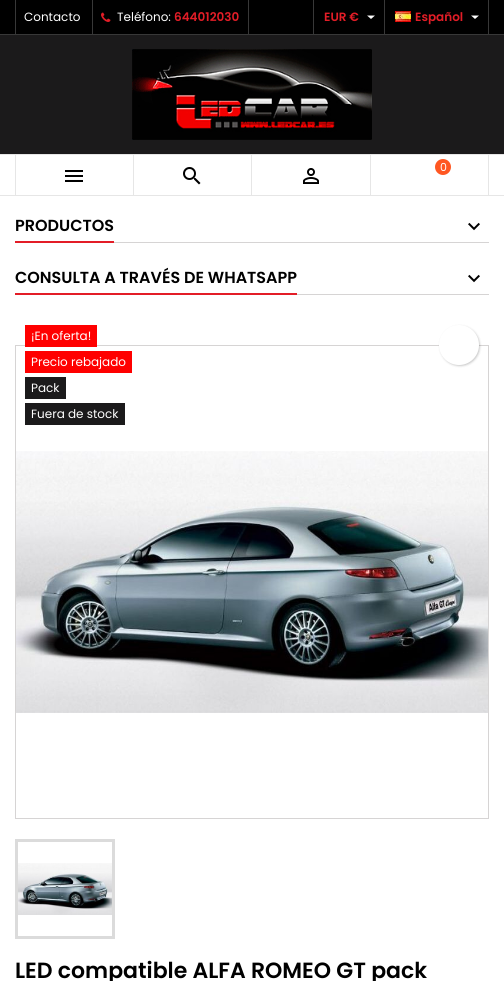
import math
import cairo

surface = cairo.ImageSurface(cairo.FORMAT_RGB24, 504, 981)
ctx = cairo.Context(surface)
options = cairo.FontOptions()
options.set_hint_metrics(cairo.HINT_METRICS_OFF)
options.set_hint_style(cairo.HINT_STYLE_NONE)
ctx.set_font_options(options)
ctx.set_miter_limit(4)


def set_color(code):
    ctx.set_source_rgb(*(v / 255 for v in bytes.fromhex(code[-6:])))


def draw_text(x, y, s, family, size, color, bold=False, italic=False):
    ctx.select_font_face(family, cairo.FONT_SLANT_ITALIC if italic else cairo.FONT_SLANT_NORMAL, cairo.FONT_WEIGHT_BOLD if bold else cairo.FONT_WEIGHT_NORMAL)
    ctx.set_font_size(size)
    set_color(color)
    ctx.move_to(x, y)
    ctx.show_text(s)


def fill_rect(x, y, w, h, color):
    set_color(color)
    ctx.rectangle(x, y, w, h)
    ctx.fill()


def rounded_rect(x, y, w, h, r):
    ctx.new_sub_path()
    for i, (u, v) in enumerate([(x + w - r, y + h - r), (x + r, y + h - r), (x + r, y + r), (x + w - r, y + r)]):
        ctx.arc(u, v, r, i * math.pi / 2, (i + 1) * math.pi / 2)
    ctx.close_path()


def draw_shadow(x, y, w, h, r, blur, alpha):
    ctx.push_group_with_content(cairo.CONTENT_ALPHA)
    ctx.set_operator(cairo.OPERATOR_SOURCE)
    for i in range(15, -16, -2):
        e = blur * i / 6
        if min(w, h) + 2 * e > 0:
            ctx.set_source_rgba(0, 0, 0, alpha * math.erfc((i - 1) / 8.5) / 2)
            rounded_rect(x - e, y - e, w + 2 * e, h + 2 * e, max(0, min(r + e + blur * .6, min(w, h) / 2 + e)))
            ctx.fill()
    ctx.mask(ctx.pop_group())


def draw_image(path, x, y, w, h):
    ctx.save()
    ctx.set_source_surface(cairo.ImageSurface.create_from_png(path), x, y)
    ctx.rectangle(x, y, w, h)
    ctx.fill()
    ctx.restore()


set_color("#ffffff")
ctx.paint()
fill_rect(0, 0, 504, 34, "#000000")
fill_rect(0, 34, 504, 1, "#383838")
fill_rect(15, 0, 1, 34, "#383838")
draw_text(24, 21, "Contacto", "Poppins", 12, "#ffffff")
fill_rect(248, 0, 1, 34, "#383838")
fill_rect(92, 0, 1, 34, "#383838")
draw_image("assets/img1.png", 101, 12, 10, 10)
draw_text(117, 21, "Teléfono:", "Poppins", 12, "#ffffff")
draw_text(174, 21, "644012030", "Poppins SemiBold", 12, "#e31d27")
fill_rect(313, 0, 1, 34, "#383838")
draw_text(324, 21, "EUR €", "Poppins SemiBold", 12, "#e31d27")
set_color("#ffffff")
ctx.new_path()
ctx.move_to(367, 15.5)
ctx.line_to(375, 15.5)
ctx.line_to(371, 19)
ctx.close_path()
ctx.fill()
fill_rect(488, 0, 1, 34, "#383838")
fill_rect(384, 0, 1, 34, "#383838")
draw_image("assets/img2.png", 395, 11, 16, 11)
draw_text(415, 21, "Español", "Poppins SemiBold", 12, "#e31d27")
set_color("#ffffff")
ctx.new_path()
ctx.move_to(471, 15.5)
ctx.line_to(479, 15.5)
ctx.line_to(475, 19)
ctx.close_path()
ctx.fill()
fill_rect(0, 35, 504, 119, "#1b1a1b")
draw_image("assets/img3.png", 132, 49, 240, 91)
fill_rect(0, 154, 504, 1, "#e6e6e6")
fill_rect(0, 195, 504, 1, "#e6e6e6")
fill_rect(133, 155, 1, 40, "#e6e6e6")
fill_rect(15, 155, 1, 40, "#e6e6e6")
draw_image("assets/img4.png", 65, 170, 18, 12)
fill_rect(251, 155, 1, 40, "#e6e6e6")
draw_image("assets/img5.png", 183, 167, 18, 18)
fill_rect(370, 155, 1, 40, "#e6e6e6")
draw_image("assets/img6.png", 303, 168, 16, 16)
fill_rect(488, 155, 1, 40, "#e6e6e6")
set_color("#ff5722")
ctx.arc(443, 167, 8, 0, 2 * math.pi)
ctx.fill()
draw_text(440, 171, "0", "Poppins", 11, "#ffffff")
fill_rect(114, 242, 375, 1, "#d6d4d4")
fill_rect(15, 241, 99, 2, "#e31d27")
draw_text(15, 231, "PRODUCTOS", "Poppins SemiBold", 16, "#000000")
draw_image("assets/img7.png", 468, 222, 12, 9)
fill_rect(297, 294, 192, 1, "#d6d4d4")
fill_rect(15, 293, 282, 2, "#e31d27")
draw_text(15, 283, "CONSULTA A TRAVÉS DE WHATSAPP", "Poppins SemiBold", 16, "#000000")
draw_image("assets/img7.png", 468, 274, 12, 9)
ctx.rectangle(15.5, 345.5, 473, 473)
set_color("#d6d4d4")
ctx.set_line_width(1)
ctx.stroke()
fill_rect(25, 325, 72, 22, "#ff0000")
draw_text(31, 340, "¡En oferta!", "Poppins", 12, "#ffffff")
fill_rect(25, 351, 107, 22, "#ff0000")
draw_text(31, 366, "Precio rebajado", "Poppins", 12, "#ffffff")
fill_rect(25, 377, 41, 22, "#1b1a1b")
draw_text(31, 392, "Pack", "Poppins", 12, "#ffffff")
fill_rect(25, 403, 100, 22, "#1b1a1b")
draw_text(31, 418, "Fuera de stock", "Poppins", 12, "#ffffff")
set_color("#000000")
draw_shadow(440, 326, 40, 40, 20, 1, 0.2)
set_color("#ffffff")
ctx.arc(459, 345, 20, 0, 2 * math.pi)
ctx.fill()
draw_image("assets/img8.png", 16, 451, 472, 262)
ctx.rectangle(16.5, 840.5, 97, 97)
set_color("#dbdbdb")
ctx.set_line_width(3)
ctx.stroke()
draw_image("assets/img9.png", 18, 863, 94, 52)
draw_text(15, 978, "LED compatible ALFA ROMEO GT pack", "Poppins SemiBold", 22, "#000000")
surface.write_to_png("output.png")
